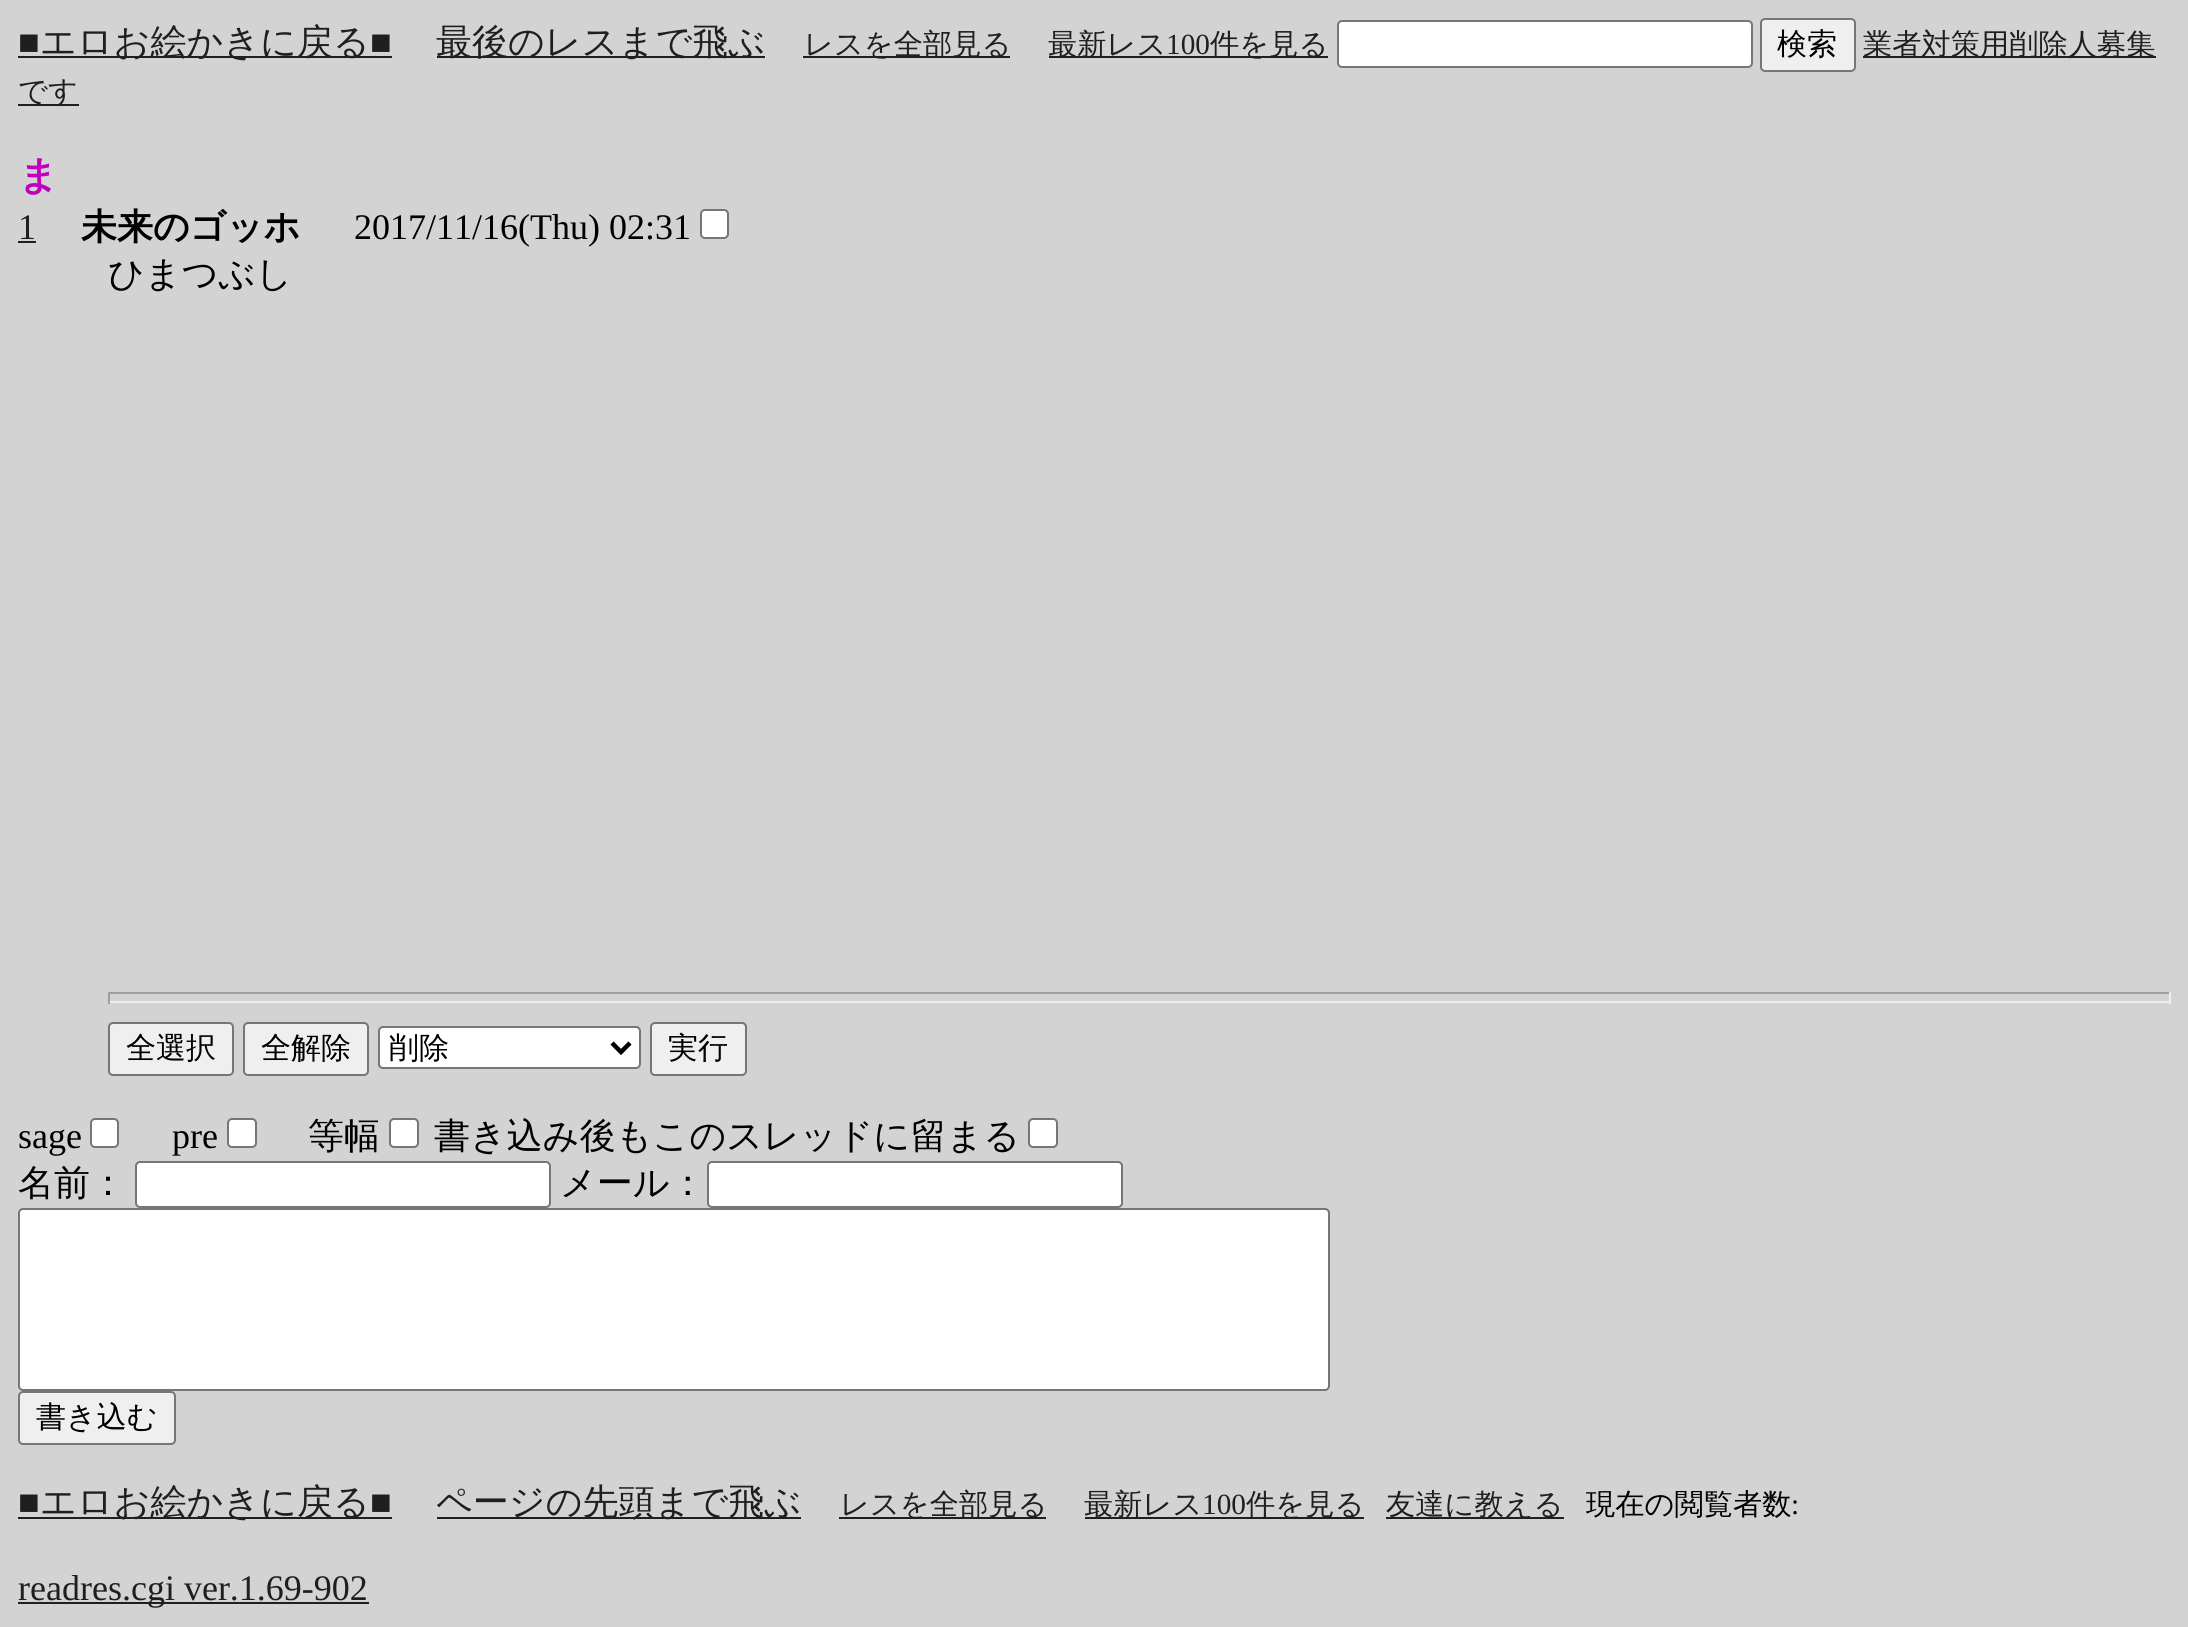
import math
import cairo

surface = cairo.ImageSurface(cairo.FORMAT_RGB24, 2188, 1627)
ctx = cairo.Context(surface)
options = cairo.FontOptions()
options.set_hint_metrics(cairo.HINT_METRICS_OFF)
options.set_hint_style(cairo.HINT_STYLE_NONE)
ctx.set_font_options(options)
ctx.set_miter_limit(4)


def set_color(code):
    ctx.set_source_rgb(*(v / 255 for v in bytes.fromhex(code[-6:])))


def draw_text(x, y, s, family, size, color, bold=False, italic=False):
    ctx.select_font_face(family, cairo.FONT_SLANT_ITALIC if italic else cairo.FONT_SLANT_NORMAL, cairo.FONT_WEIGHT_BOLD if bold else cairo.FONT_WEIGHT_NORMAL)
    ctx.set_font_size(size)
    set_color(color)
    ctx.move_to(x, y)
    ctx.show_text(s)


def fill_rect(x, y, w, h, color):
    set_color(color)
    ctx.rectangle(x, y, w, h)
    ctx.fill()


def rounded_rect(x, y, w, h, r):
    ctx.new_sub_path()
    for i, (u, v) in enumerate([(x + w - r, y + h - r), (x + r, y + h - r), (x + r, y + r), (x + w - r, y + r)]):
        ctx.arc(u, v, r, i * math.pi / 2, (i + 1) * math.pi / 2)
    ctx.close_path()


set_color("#d3d3d3")
ctx.paint()
fill_rect(18, 56, 374, 2, "#1f1f1f")
draw_text(40, 54, "エロお絵かきに戻る", "WenQuanYi Zen Hei Medium", 36, "#1f1f1f")
fill_rect(437, 56, 328, 2, "#1f1f1f")
draw_text(436, 54, "最後のレスまで飛ぶ", "WenQuanYi Zen Hei Medium", 36, "#1f1f1f")
fill_rect(803, 56, 207, 2, "#1f1f1f")
draw_text(804, 54, "レスを全部見る", "WenQuanYi Zen Hei Medium", 29.25, "#1f1f1f")
fill_rect(1049, 56, 279, 2, "#1f1f1f")
draw_text(1048, 54, "最新レス", "WenQuanYi Zen Hei Medium", 29.25, "#1f1f1f")
draw_text(1166, 54, "100", "Liberation Serif", 29.25, "#1f1f1f")
draw_text(1210, 54, "件を見る", "WenQuanYi Zen Hei Medium", 29.25, "#1f1f1f")
set_color("#ffffff")
rounded_rect(1338, 21, 414, 46, 4)
ctx.fill_preserve()
set_color("#767676")
ctx.stroke()
set_color("#efefef")
rounded_rect(1761, 19, 94, 52, 4)
ctx.fill_preserve()
set_color("#767676")
ctx.stroke()
draw_text(1777, 54, "検索", "WenQuanYi Zen Hei Medium", 30, "#000000")
fill_rect(1863, 56, 293, 2, "#1f1f1f")
draw_text(1863, 54, "業者対策用削除人募集", "WenQuanYi Zen Hei Medium", 29.25, "#1f1f1f")
fill_rect(18, 104, 61, 2, "#1f1f1f")
draw_text(18, 101, "です", "WenQuanYi Zen Hei Medium", 29.25, "#1f1f1f")
draw_text(18, 54, "■", "Liberation Serif", 36, "#1f1f1f")
draw_text(370, 54, "■", "Liberation Serif", 36, "#1f1f1f")
draw_text(18, 189, "ま", "WenQuanYi Zen Hei", 40, "#bf00bf", bold=True)
draw_text(18, 239, "1", "Liberation Serif", 36, "#1f1f1f")
fill_rect(18, 241, 18, 2, "#1f1f1f")
draw_text(81, 239, "未来のゴッホ", "WenQuanYi Zen Hei", 36, "#000000", bold=True)
draw_text(354, 239, "2017/11/16(Thu) 02:31", "Liberation Serif", 36, "#000000")
set_color("#ffffff")
rounded_rect(701, 210, 27, 28, 4)
ctx.fill_preserve()
set_color("#767676")
ctx.stroke()
draw_text(108, 286, "ひまつぶし", "WenQuanYi Zen Hei Medium", 36, "#000000")
fill_rect(108, 992, 2063, 2, "#9f9f9f")
fill_rect(2169, 992, 2, 12, "#eeeeee")
fill_rect(108, 1001, 2063, 2, "#eeeeee")
fill_rect(108, 992, 2, 12, "#9f9f9f")
set_color("#efefef")
rounded_rect(109, 1023, 124, 52, 4)
ctx.fill_preserve()
set_color("#767676")
ctx.stroke()
draw_text(126, 1058, "全選択", "WenQuanYi Zen Hei Medium", 30, "#000000")
set_color("#efefef")
rounded_rect(244, 1023, 124, 52, 4)
ctx.fill_preserve()
set_color("#767676")
ctx.stroke()
draw_text(261, 1058, "全解除", "WenQuanYi Zen Hei Medium", 30, "#000000")
set_color("#ffffff")
rounded_rect(379, 1027, 261, 41, 4)
ctx.fill_preserve()
set_color("#767676")
ctx.stroke()
ctx.new_path()
ctx.move_to(612, 1043)
ctx.line_to(621, 1052)
ctx.line_to(630, 1043)
set_color("#000000")
ctx.set_line_width(4.5)
ctx.stroke()
draw_text(389, 1058, "削除", "WenQuanYi Zen Hei Medium", 30, "#000000")
set_color("#efefef")
rounded_rect(651, 1023, 95, 52, 4)
ctx.fill_preserve()
set_color("#767676")
ctx.set_line_width(2)
ctx.stroke()
draw_text(668, 1058, "実行", "WenQuanYi Zen Hei Medium", 30, "#000000")
draw_text(18, 1148, "sage", "Liberation Serif", 36, "#000000")
set_color("#ffffff")
rounded_rect(91, 1119, 27, 28, 4)
ctx.fill_preserve()
set_color("#767676")
ctx.stroke()
draw_text(172, 1148, "pre", "Liberation Serif", 36, "#000000")
set_color("#ffffff")
rounded_rect(228, 1119, 28, 28, 4)
ctx.fill_preserve()
set_color("#767676")
ctx.stroke()
draw_text(308, 1148, "等幅", "WenQuanYi Zen Hei Medium", 36, "#000000")
set_color("#ffffff")
rounded_rect(390, 1119, 28, 28, 4)
ctx.fill_preserve()
set_color("#767676")
ctx.stroke()
draw_text(434, 1148, "書き込み後もこのスレッドに留まる", "WenQuanYi Zen Hei Medium", 36, "#000000")
set_color("#ffffff")
rounded_rect(1029, 1119, 28, 28, 4)
ctx.fill_preserve()
set_color("#767676")
ctx.stroke()
draw_text(18, 1195, "名前：", "WenQuanYi Zen Hei Medium", 36, "#000000")
set_color("#ffffff")
rounded_rect(136, 1162, 414, 45, 4)
ctx.fill_preserve()
set_color("#767676")
ctx.stroke()
draw_text(560, 1195, "メール：", "WenQuanYi Zen Hei Medium", 36, "#000000")
set_color("#ffffff")
rounded_rect(708, 1162, 414, 45, 4)
ctx.fill_preserve()
set_color("#767676")
ctx.stroke()
set_color("#ffffff")
rounded_rect(19, 1209, 1310, 181, 4)
ctx.fill_preserve()
set_color("#767676")
ctx.stroke()
set_color("#efefef")
rounded_rect(19, 1392, 156, 52, 4)
ctx.fill_preserve()
set_color("#767676")
ctx.stroke()
draw_text(36, 1427, "書き込む", "WenQuanYi Zen Hei Medium", 30, "#000000")
draw_text(18, 1514, "■", "Liberation Serif", 36, "#1f1f1f")
fill_rect(18, 1517, 374, 2, "#1f1f1f")
draw_text(40, 1514, "エロお絵かきに戻る", "WenQuanYi Zen Hei Medium", 36, "#1f1f1f")
draw_text(370, 1514, "■", "Liberation Serif", 36, "#1f1f1f")
fill_rect(437, 1517, 364, 2, "#1f1f1f")
draw_text(436, 1514, "ページの先頭まで飛ぶ", "WenQuanYi Zen Hei Medium", 36, "#1f1f1f")
fill_rect(839, 1517, 207, 2, "#1f1f1f")
draw_text(840, 1514, "レスを全部見る", "WenQuanYi Zen Hei Medium", 29.25, "#1f1f1f")
fill_rect(1085, 1517, 279, 2, "#1f1f1f")
draw_text(1084, 1514, "最新レス", "WenQuanYi Zen Hei Medium", 29.25, "#1f1f1f")
draw_text(1202, 1514, "100", "Liberation Serif", 29.25, "#1f1f1f")
draw_text(1246, 1514, "件を見る", "WenQuanYi Zen Hei Medium", 29.25, "#1f1f1f")
fill_rect(1386, 1517, 178, 2, "#1f1f1f")
draw_text(1386, 1514, "友達に教える", "WenQuanYi Zen Hei Medium", 29.25, "#1f1f1f")
draw_text(1586, 1514, "現在の閲覧者数", "WenQuanYi Zen Hei Medium", 29.25, "#000000")
draw_text(1791, 1514, ":", "Liberation Serif", 29.25, "#000000")
fill_rect(18, 1602, 351, 2, "#1f1f1f")
draw_text(18, 1600, "readres.cgi ver.1.69-902", "Liberation Serif", 36, "#1f1f1f")
surface.write_to_png("output.png")
